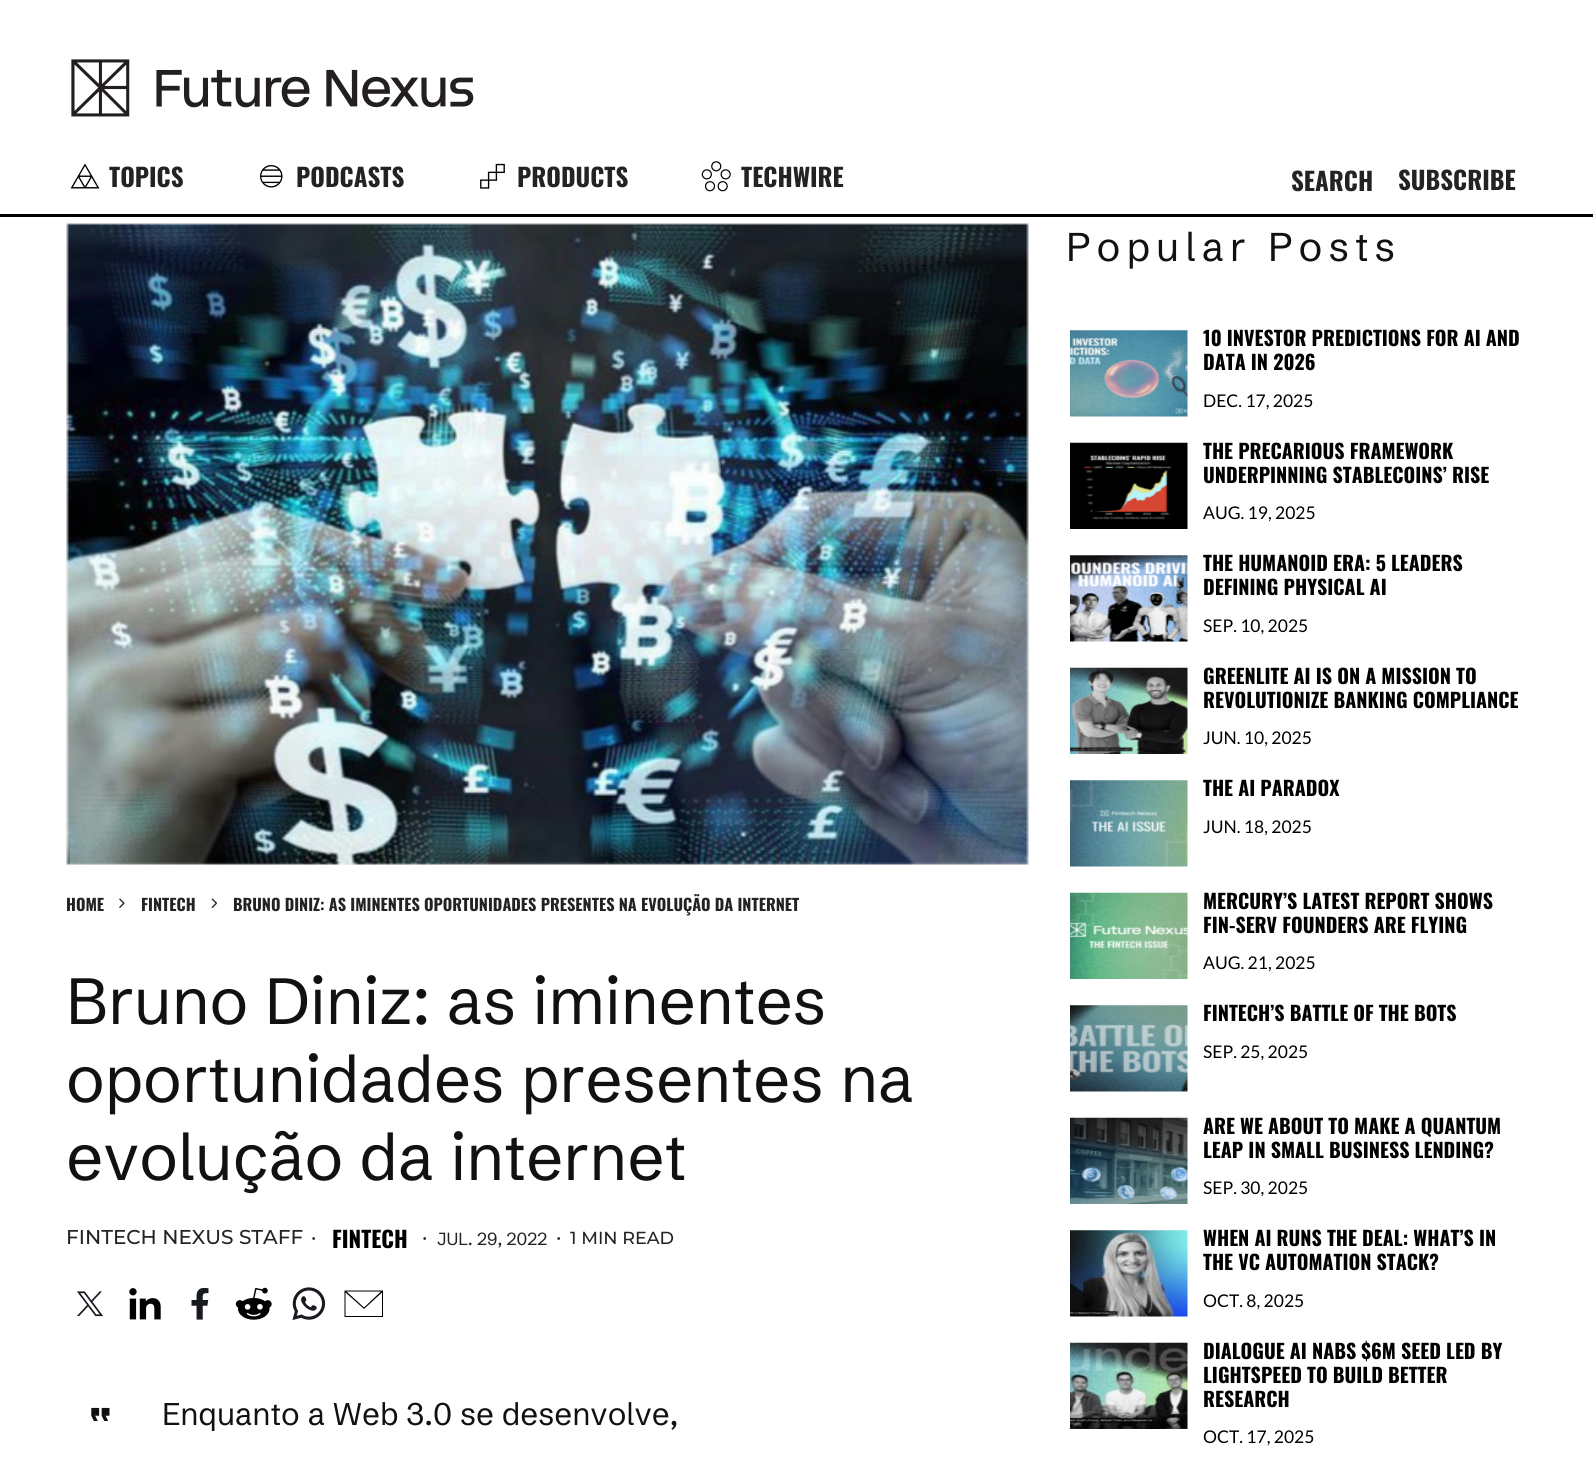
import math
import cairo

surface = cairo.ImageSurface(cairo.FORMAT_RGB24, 1593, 1465)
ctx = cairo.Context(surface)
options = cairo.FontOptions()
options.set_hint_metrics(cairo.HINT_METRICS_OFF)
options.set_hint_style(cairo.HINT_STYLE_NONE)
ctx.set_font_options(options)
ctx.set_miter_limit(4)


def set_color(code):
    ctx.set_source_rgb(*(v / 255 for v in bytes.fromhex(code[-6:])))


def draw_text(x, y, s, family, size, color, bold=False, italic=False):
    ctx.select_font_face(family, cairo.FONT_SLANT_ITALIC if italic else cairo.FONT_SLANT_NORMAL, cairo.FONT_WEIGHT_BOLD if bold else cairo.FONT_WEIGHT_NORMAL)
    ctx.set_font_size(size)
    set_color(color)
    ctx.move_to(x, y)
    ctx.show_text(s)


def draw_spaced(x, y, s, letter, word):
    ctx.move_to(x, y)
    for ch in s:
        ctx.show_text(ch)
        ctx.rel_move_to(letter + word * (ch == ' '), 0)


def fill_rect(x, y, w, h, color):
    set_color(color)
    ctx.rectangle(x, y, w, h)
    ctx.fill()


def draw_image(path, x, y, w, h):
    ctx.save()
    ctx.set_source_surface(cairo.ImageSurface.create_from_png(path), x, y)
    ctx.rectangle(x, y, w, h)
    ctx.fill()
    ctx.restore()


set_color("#ffffff")
ctx.paint()
fill_rect(0, 214, 1593, 3, "#000000")
draw_image("assets/img1.png", 71, 59, 403, 58)
draw_image("assets/img2.png", 70, 163, 30, 26)
draw_text(109, 187, "TOPICS", "Oswald", 25, "#232323", bold=True)
draw_image("assets/img3.png", 260, 165, 23, 23)
draw_text(296, 187, "PODCASTS", "Oswald", 25, "#232323", bold=True)
draw_image("assets/img4.png", 480, 163, 25, 26)
draw_text(517, 187, "PRODUCTS", "Oswald", 25, "#232323", bold=True)
draw_image("assets/img5.png", 701, 161, 30, 31)
draw_text(741, 187, "TECHWIRE", "Oswald", 25, "#232323", bold=True)
draw_text(1291, 191, "SEARCH", "Oswald", 25, "#232323", bold=True)
draw_text(1398, 190, "SUBSCRIBE", "Oswald", 25, "#232323", bold=True)
fill_rect(66, 223, 963, 642, "#eeeeee")
draw_image("assets/img6.png", 66, 223, 963, 642)
draw_text(66, 911, "HOME", "Oswald", 16.25, "#232323", bold=True)
draw_image("assets/img7.png", 119, 898, 6, 10)
draw_text(141, 911, "FINTECH", "Oswald", 16.25, "#232323", bold=True)
draw_image("assets/img8.png", 211, 898, 6, 10)
draw_text(233, 911, "BRUNO DINIZ: AS IMINENTES OPORTUNIDADES PRESENTES NA EVOLUÇÃO DA INTERNET", "Oswald", 16.25, "#232323", bold=True)
draw_text(66, 1024, "Bruno Diniz: as iminentes", "Schibsted Grotesk", 65, "#111111")
draw_text(66, 1102, "oportunidades presentes na", "Schibsted Grotesk", 65, "#111111")
draw_text(66, 1180, "evolução da internet", "Schibsted Grotesk", 65, "#111111")
draw_text(66, 1244, "FINTECH NEXUS STAFF", "Montserrat Medium", 20, "#232323")
draw_text(311, 1244, "·", "Montserrat Medium", 20, "#232323")
draw_text(332, 1248, "FINTECH", "Oswald", 22.5, "#000000", bold=True)
draw_text(422, 1244, "·", "Montserrat Medium", 20, "#232323")
draw_text(437, 1245, "JUL. 29, 2022", "Schibsted Grotesk", 17.5, "#232323")
draw_text(556, 1244, "·", "Montserrat Medium", 20, "#232323")
draw_text(570, 1244, "1 MIN READ", "Montserrat Medium", 17.5, "#232323")
draw_image("assets/img9.png", 77, 1291, 26, 26)
draw_image("assets/img10.png", 129, 1288, 32, 32)
draw_image("assets/img11.png", 191, 1287, 18, 33)
draw_image("assets/img12.png", 235, 1287, 37, 33)
draw_image("assets/img13.png", 292, 1287, 34, 33)
set_color("#000000")
ctx.new_path()
ctx.move_to(344.5, 1290.5)
ctx.line_to(344.5, 1317)
ctx.line_to(383, 1317)
ctx.line_to(383, 1290.5)
ctx.close_path()
ctx.move_to(381, 1291.5)
ctx.line_to(364, 1307.5)
ctx.line_to(346.5, 1291.5)
ctx.close_path()
ctx.move_to(345.5, 1316)
ctx.line_to(345.5, 1292.5)
ctx.line_to(364, 1309)
ctx.line_to(382, 1292.5)
ctx.line_to(382, 1316)
ctx.close_path()
ctx.fill()
draw_image("assets/img14.png", 91, 1407, 19, 14)
draw_text(162, 1425, "Enquanto a Web 3.0 se desenvolve,", "Schibsted Grotesk", 31.25, "#111111")
ctx.set_font_size(40)
draw_spaced(1066, 261, "Popular Posts", 6, 0)
draw_image("assets/img15.png", 1070, 330, 118, 87)
draw_text(1203, 346, "10 INVESTOR PREDICTIONS FOR AI AND", "Oswald", 20, "#000000", bold=True)
draw_text(1203, 370, "DATA IN 2026", "Oswald", 20, "#000000", bold=True)
draw_text(1203, 407, "DEC. 17, 2025", "Lato", 17.5, "#000000")
draw_image("assets/img16.png", 1070, 442, 118, 87)
draw_text(1203, 459, "THE PRECARIOUS FRAMEWORK", "Oswald", 20, "#000000", bold=True)
draw_text(1203, 483, "UNDERPINNING STABLECOINS’ RISE", "Oswald", 20, "#000000", bold=True)
draw_text(1203, 519, "AUG. 19, 2025", "Lato", 17.5, "#000000")
draw_image("assets/img17.png", 1070, 555, 118, 87)
draw_text(1203, 571, "THE HUMANOID ERA: 5 LEADERS", "Oswald", 20, "#000000", bold=True)
draw_text(1203, 595, "DEFINING PHYSICAL AI", "Oswald", 20, "#000000", bold=True)
draw_text(1203, 632, "SEP. 10, 2025", "Lato", 17.5, "#000000")
draw_image("assets/img18.png", 1070, 667, 118, 87)
draw_text(1203, 684, "GREENLITE AI IS ON A MISSION TO", "Oswald", 20, "#000000", bold=True)
draw_text(1203, 708, "REVOLUTIONIZE BANKING COMPLIANCE", "Oswald", 20, "#000000", bold=True)
draw_text(1203, 744, "JUN. 10, 2025", "Lato", 17.5, "#000000")
draw_image("assets/img19.png", 1070, 780, 118, 87)
draw_text(1203, 796, "THE AI PARADOX", "Oswald", 20, "#000000", bold=True)
draw_text(1203, 833, "JUN. 18, 2025", "Lato", 17.5, "#000000")
draw_image("assets/img20.png", 1070, 892, 118, 87)
draw_text(1203, 909, "MERCURY’S LATEST REPORT SHOWS", "Oswald", 20, "#000000", bold=True)
draw_text(1203, 933, "FIN-SERV FOUNDERS ARE FLYING", "Oswald", 20, "#000000", bold=True)
draw_text(1203, 969, "AUG. 21, 2025", "Lato", 17.5, "#000000")
draw_image("assets/img21.png", 1070, 1005, 118, 87)
draw_text(1203, 1021, "FINTECH’S BATTLE OF THE BOTS", "Oswald", 20, "#000000", bold=True)
draw_text(1203, 1058, "SEP. 25, 2025", "Lato", 17.5, "#000000")
draw_image("assets/img22.png", 1070, 1117, 118, 87)
draw_text(1203, 1134, "ARE WE ABOUT TO MAKE A QUANTUM", "Oswald", 20, "#000000", bold=True)
draw_text(1203, 1158, "LEAP IN SMALL BUSINESS LENDING?", "Oswald", 20, "#000000", bold=True)
draw_text(1203, 1194, "SEP. 30, 2025", "Lato", 17.5, "#000000")
draw_image("assets/img23.png", 1070, 1230, 118, 87)
draw_text(1203, 1246, "WHEN AI RUNS THE DEAL: WHAT’S IN", "Oswald", 20, "#000000", bold=True)
draw_text(1203, 1270, "THE VC AUTOMATION STACK?", "Oswald", 20, "#000000", bold=True)
draw_text(1203, 1307, "OCT. 8, 2025", "Lato", 17.5, "#000000")
draw_image("assets/img24.png", 1070, 1342, 118, 87)
draw_text(1203, 1359, "DIALOGUE AI NABS $6M SEED LED BY", "Oswald", 20, "#000000", bold=True)
draw_text(1203, 1383, "LIGHTSPEED TO BUILD BETTER", "Oswald", 20, "#000000", bold=True)
draw_text(1203, 1407, "RESEARCH", "Oswald", 20, "#000000", bold=True)
draw_text(1203, 1443, "OCT. 17, 2025", "Lato", 17.5, "#000000")
surface.write_to_png("output.png")
